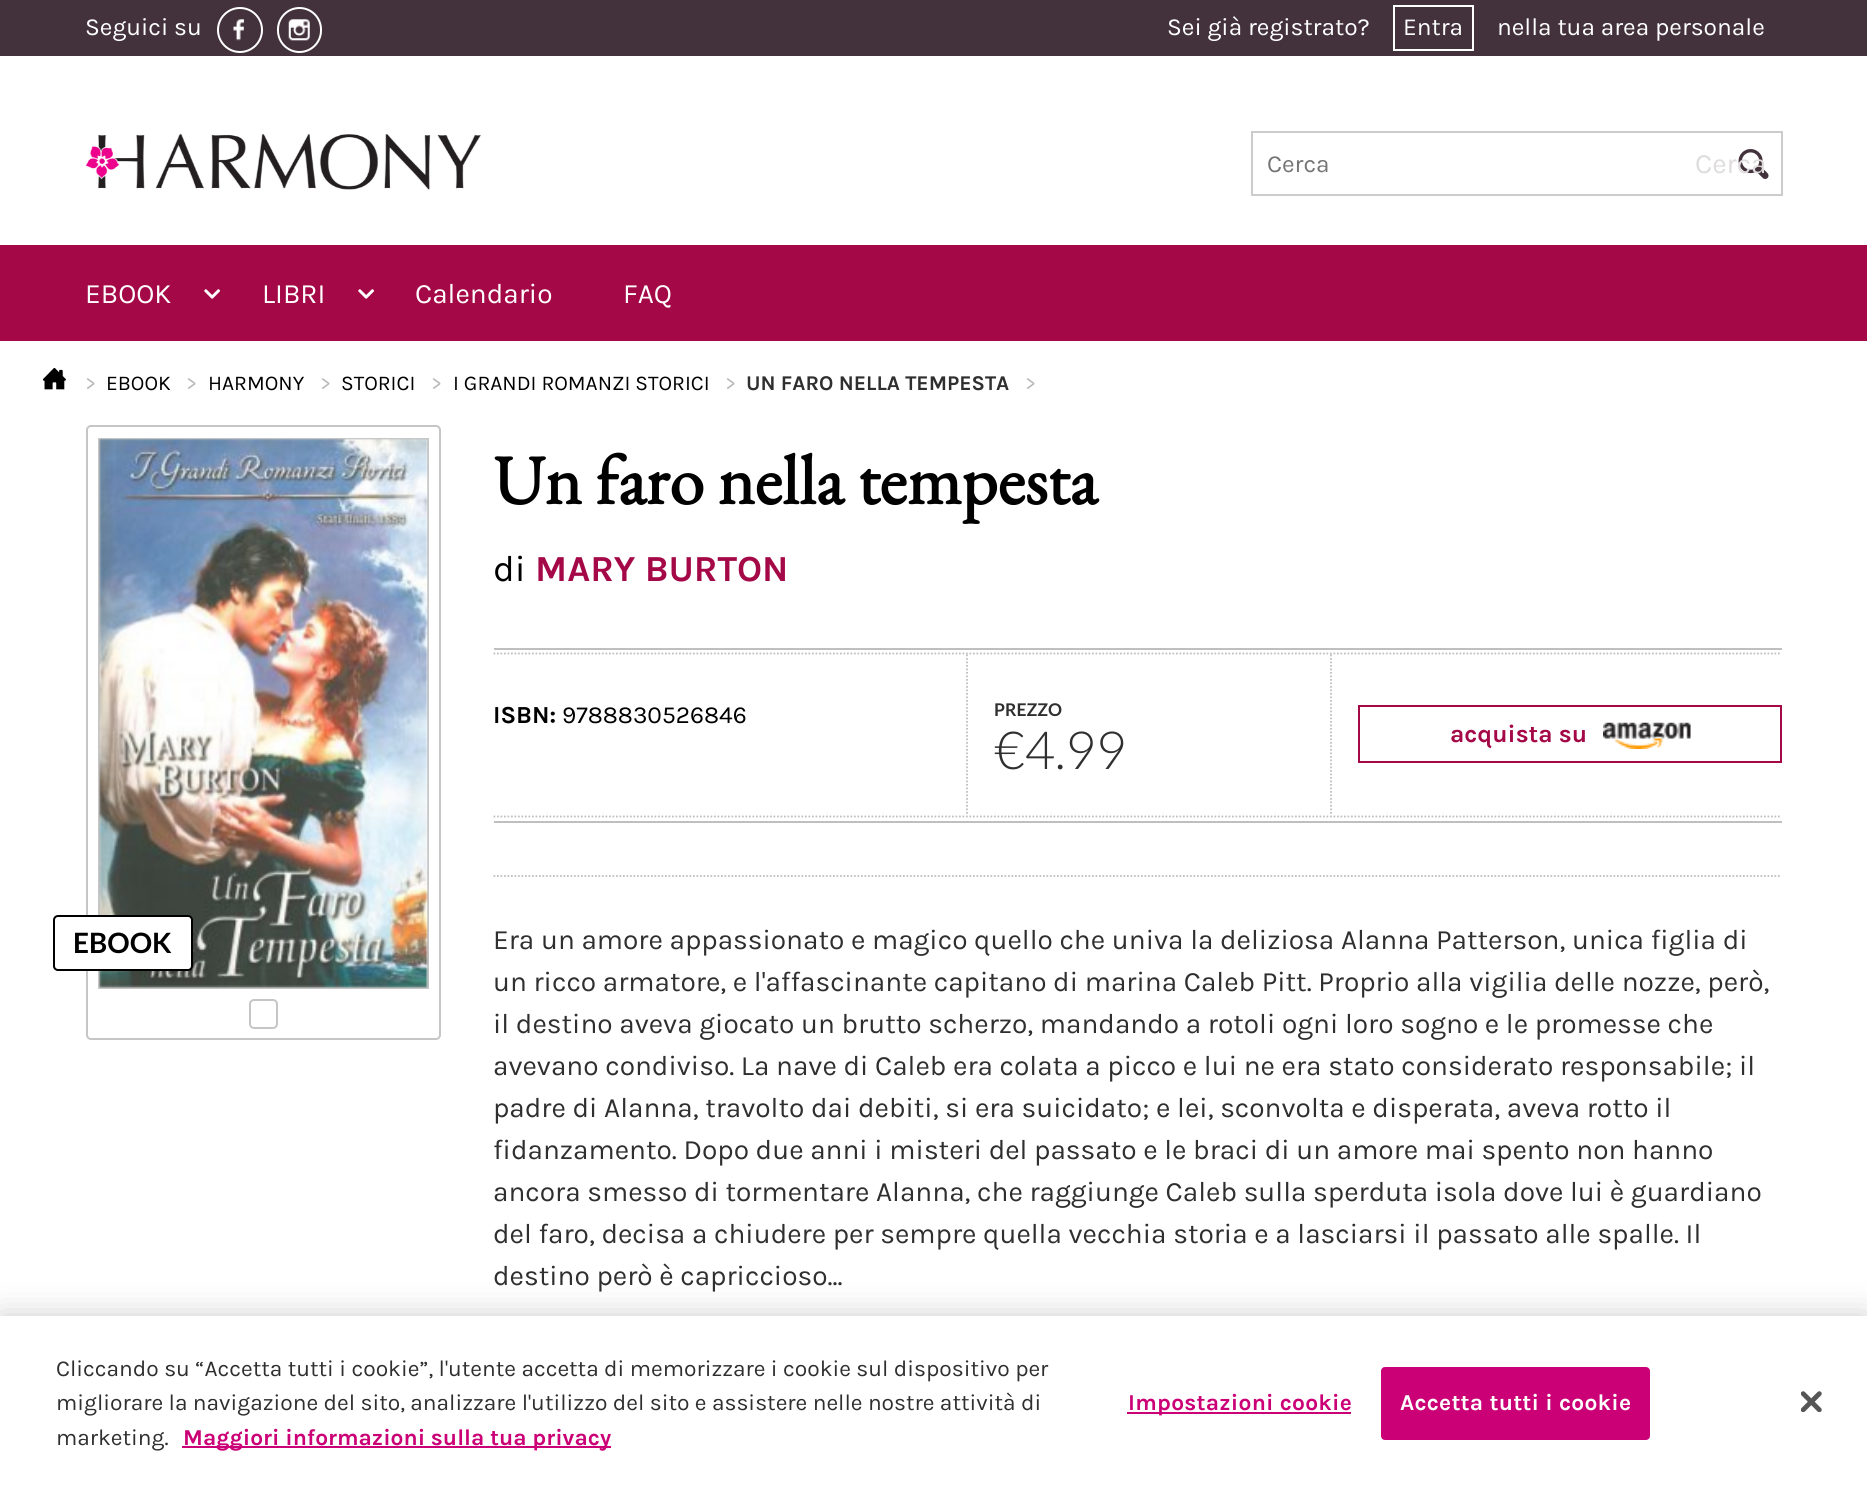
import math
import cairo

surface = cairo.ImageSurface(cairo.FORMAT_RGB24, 1867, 1493)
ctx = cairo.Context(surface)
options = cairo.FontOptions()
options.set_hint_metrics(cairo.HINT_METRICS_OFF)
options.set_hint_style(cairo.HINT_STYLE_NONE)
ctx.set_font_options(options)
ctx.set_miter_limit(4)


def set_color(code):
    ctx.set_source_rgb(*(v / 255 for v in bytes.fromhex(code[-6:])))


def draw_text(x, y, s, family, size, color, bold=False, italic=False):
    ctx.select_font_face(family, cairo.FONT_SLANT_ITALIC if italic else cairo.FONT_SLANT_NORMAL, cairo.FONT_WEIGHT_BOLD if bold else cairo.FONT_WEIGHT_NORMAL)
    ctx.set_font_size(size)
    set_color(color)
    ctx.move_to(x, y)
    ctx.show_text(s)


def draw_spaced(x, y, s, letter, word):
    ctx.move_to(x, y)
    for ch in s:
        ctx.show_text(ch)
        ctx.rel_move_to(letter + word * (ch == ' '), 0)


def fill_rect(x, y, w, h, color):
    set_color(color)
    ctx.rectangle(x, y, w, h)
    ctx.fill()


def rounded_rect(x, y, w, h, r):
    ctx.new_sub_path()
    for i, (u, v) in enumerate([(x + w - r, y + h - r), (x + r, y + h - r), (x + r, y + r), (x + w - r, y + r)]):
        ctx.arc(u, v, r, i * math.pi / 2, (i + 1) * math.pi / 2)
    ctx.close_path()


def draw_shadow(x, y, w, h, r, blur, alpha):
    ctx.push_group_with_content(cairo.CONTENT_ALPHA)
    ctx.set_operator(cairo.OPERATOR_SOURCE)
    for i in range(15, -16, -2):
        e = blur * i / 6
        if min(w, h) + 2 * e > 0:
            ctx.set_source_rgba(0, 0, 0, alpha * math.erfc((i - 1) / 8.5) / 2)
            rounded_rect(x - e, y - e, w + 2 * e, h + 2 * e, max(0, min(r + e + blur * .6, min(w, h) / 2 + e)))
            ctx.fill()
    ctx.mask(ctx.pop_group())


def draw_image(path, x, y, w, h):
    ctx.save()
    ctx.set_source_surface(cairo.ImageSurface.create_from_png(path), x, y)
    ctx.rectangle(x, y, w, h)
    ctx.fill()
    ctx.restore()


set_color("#ffffff")
ctx.paint()
fill_rect(0, 0, 1867, 56, "#43323b")
draw_text(85, 35, "Seguici su", "Karla", 24.5, "#ffffff")
ctx.new_path()
ctx.arc(240, 30, 22, 0, 2 * math.pi)
ctx.stroke()
draw_image("assets/img1.png", 233, 19, 11, 22)
rounded_rect(278, 8, 43, 44, 21.5)
ctx.stroke()
draw_image("assets/img2.png", 288, 19, 22, 22)
draw_text(1167, 35, "Sei già registrato?", "Karla", 24.5, "#ffffff")
ctx.rectangle(1394, 6, 79, 44)
ctx.stroke()
draw_text(1403, 35, "Entra", "Karla", 24.5, "#ffffff")
draw_text(1497, 35, "nella tua area personale", "Karla", 24.5, "#ffffff")
draw_image("assets/img3.png", 85, 134, 396, 56)
ctx.rectangle(1252, 132, 530, 63)
set_color("#cccccc")
ctx.stroke()
draw_image("assets/img4.png", 1738, 149, 31, 30)
draw_text(1267, 172, "Cerca", "Karla", 24.5, "#757575")
draw_text(1695, 173, "Cerca", "Karla", 28, "#dfdcde")
fill_rect(0, 245, 1867, 96, "#a40847")
draw_text(85, 303, "EBOOK", "Karla", 28, "#ffffff")
draw_image("assets/img5.png", 204, 289, 16, 10)
draw_text(262, 303, "LIBRI", "Karla", 28, "#ffffff")
draw_image("assets/img5.png", 358, 289, 16, 10)
draw_text(415, 303, "Calendario", "Karla", 28, "#ffffff")
draw_text(623, 303, "FAQ", "Karla", 28, "#ffffff")
draw_image("assets/img6.png", 42, 368, 24, 22)
draw_text(85, 390, ">", "Karla", 21, "#b8b8b8")
draw_text(106, 390, "EBOOK", "Karla", 21, "#000000")
draw_text(186, 390, ">", "Karla", 21, "#b8b8b8")
draw_text(208, 390, "HARMONY", "Karla", 21, "#000000")
draw_text(320, 390, ">", "Karla", 21, "#b8b8b8")
draw_text(341, 390, "STORICI", "Karla", 21, "#000000")
draw_text(431, 390, ">", "Karla", 21, "#b8b8b8")
draw_text(453, 390, "I GRANDI ROMANZI STORICI", "Karla", 21, "#000000")
draw_text(725, 390, ">", "Karla", 21, "#b8b8b8")
draw_text(746, 390, "UN FARO NELLA TEMPESTA", "Karla", 21, "#2f2f2f", bold=True)
draw_text(1025, 390, ">", "Karla", 21, "#b8b8b8")
rounded_rect(87, 426, 353, 613, 4)
set_color("#c6c6c6")
ctx.stroke()
ctx.rectangle(99, 439, 329, 549)
ctx.stroke()
draw_image("assets/img7.png", 99, 438, 330, 550)
set_color("#ffffff")
rounded_rect(54, 916, 138, 54, 4)
ctx.fill_preserve()
set_color("#000000")
ctx.stroke()
draw_text(73, 953, "EBOOK", "Lato", 28, "#000000", bold=True)
rounded_rect(250, 1000, 27, 28, 4)
set_color("#c6c6c6")
ctx.stroke()
draw_text(493, 504, "Un faro nella tempesta", "EB Garamond", 70, "#000000", bold=True)
draw_text(493, 581, "di", "Karla", 36.75, "#000000")
draw_text(535, 581, "MARY BURTON", "Karla", 36.75, "#a40847", bold=True)
fill_rect(494, 648, 1288, 2, "#bfbfbf")
fill_rect(494, 821, 1288, 2, "#bfbfbf")
ctx.new_path()
ctx.move_to(493.5, 653.5)
ctx.line_to(1781.5, 653.5)
ctx.set_line_width(1.8)
ctx.set_dash([1.75, 1.75])
ctx.stroke()
ctx.new_path()
ctx.move_to(493.5, 816.5)
ctx.line_to(1781.5, 816.5)
ctx.stroke()
draw_text(493, 723, "ISBN:", "Karla", 24.5, "#000000", bold=True)
draw_text(562, 723, "9788830526846", "Karla", 24.5, "#000000")
ctx.new_path()
ctx.move_to(1331, 654.5)
ctx.line_to(1331, 815.5)
set_color("#bfbfbf")
ctx.stroke()
ctx.new_path()
ctx.move_to(967, 654.5)
ctx.line_to(967, 815.5)
ctx.stroke()
draw_text(994, 716, "PREZZO", "Lato", 17.5, "#2f2f2f", bold=True)
draw_text(994, 769, "€4.99", "Lato Light", 52.5, "#2f2f2f")
ctx.rectangle(1359, 706, 422, 56)
set_color("#a40847")
ctx.set_line_width(2)
ctx.set_dash([])
ctx.stroke()
draw_text(1450, 742, "acquista su", "Karla", 24.5, "#a40847", bold=True)
draw_image("assets/img8.png", 1603, 722, 88, 27)
ctx.new_path()
ctx.move_to(493.5, 876)
ctx.line_to(1781.5, 876)
set_color("#bfbfbf")
ctx.set_line_width(1.8)
ctx.set_dash([1.75, 1.75])
ctx.stroke()
draw_text(493, 949, "Era un amore appassionato e magico quello che univa la deliziosa Alanna Patterson, unica figlia di", "Karla", 28, "#2f2f2f")
draw_text(493, 991, "un ricco armatore, e l'affascinante capitano di marina Caleb Pitt. Proprio alla vigilia delle nozze, però,", "Karla", 28, "#2f2f2f")
draw_text(493, 1033, "il destino aveva giocato un brutto scherzo, mandando a rotoli ogni loro sogno e le promesse che", "Karla", 28, "#2f2f2f")
draw_text(493, 1075, "avevano condiviso. La nave di Caleb era colata a picco e lui ne era stato considerato responsabile; il", "Karla", 28, "#2f2f2f")
draw_text(493, 1117, "padre di Alanna, travolto dai debiti, si era suicidato; e lei, sconvolta e disperata, aveva rotto il", "Karla", 28, "#2f2f2f")
draw_text(493, 1159, "fidanzamento. Dopo due anni i misteri del passato e le braci di un amore mai spento non hanno", "Karla", 28, "#2f2f2f")
draw_text(493, 1201, "ancora smesso di tormentare Alanna, che raggiunge Caleb sulla sperduta isola dove lui è guardiano", "Karla", 28, "#2f2f2f")
draw_text(493, 1243, "del faro, decisa a chiudere per sempre quella vecchia storia e a lasciarsi il passato alle spalle. Il", "Karla", 28, "#2f2f2f")
draw_text(493, 1285, "destino però è capriccioso...", "Karla", 28, "#2f2f2f")
set_color("#000000")
draw_shadow(0, 1316, 1867, 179, 0, 16, 0.2)
fill_rect(0, 1316, 1867, 177, "#ffffff")
draw_text(56, 1376, "Cliccando su “Accetta tutti i cookie”, l'utente accetta di memorizzare i cookie sul dispositivo per", "Karla", 22.75, "#2f2f2f")
draw_text(56, 1410, "migliorare la navigazione del sito, analizzare l'utilizzo del sito e assistere nelle nostre attività di", "Karla", 22.75, "#2f2f2f")
draw_text(56, 1445, "marketing.", "Karla", 22.75, "#2f2f2f")
fill_rect(182, 1446, 429, 2, "#cb0076")
draw_text(183, 1445, "Maggiori informazioni sulla tua privacy", "Karla", 22.75, "#cb0076", bold=True)
fill_rect(1127, 1412, 224, 2, "#cb0076")
draw_spaced(1128, 1410, "Impostazioni cookie", 0.25, 0)
rounded_rect(1382, 1368, 267, 71, 3)
ctx.fill_preserve()
ctx.set_line_width(2)
ctx.set_dash([])
ctx.stroke()
set_color("#ffffff")
draw_spaced(1400, 1410, "Accetta tutti i cookie", 0.25, 0)
draw_image("assets/img9.png", 1801, 1391, 21, 21)
surface.write_to_png("output.png")
